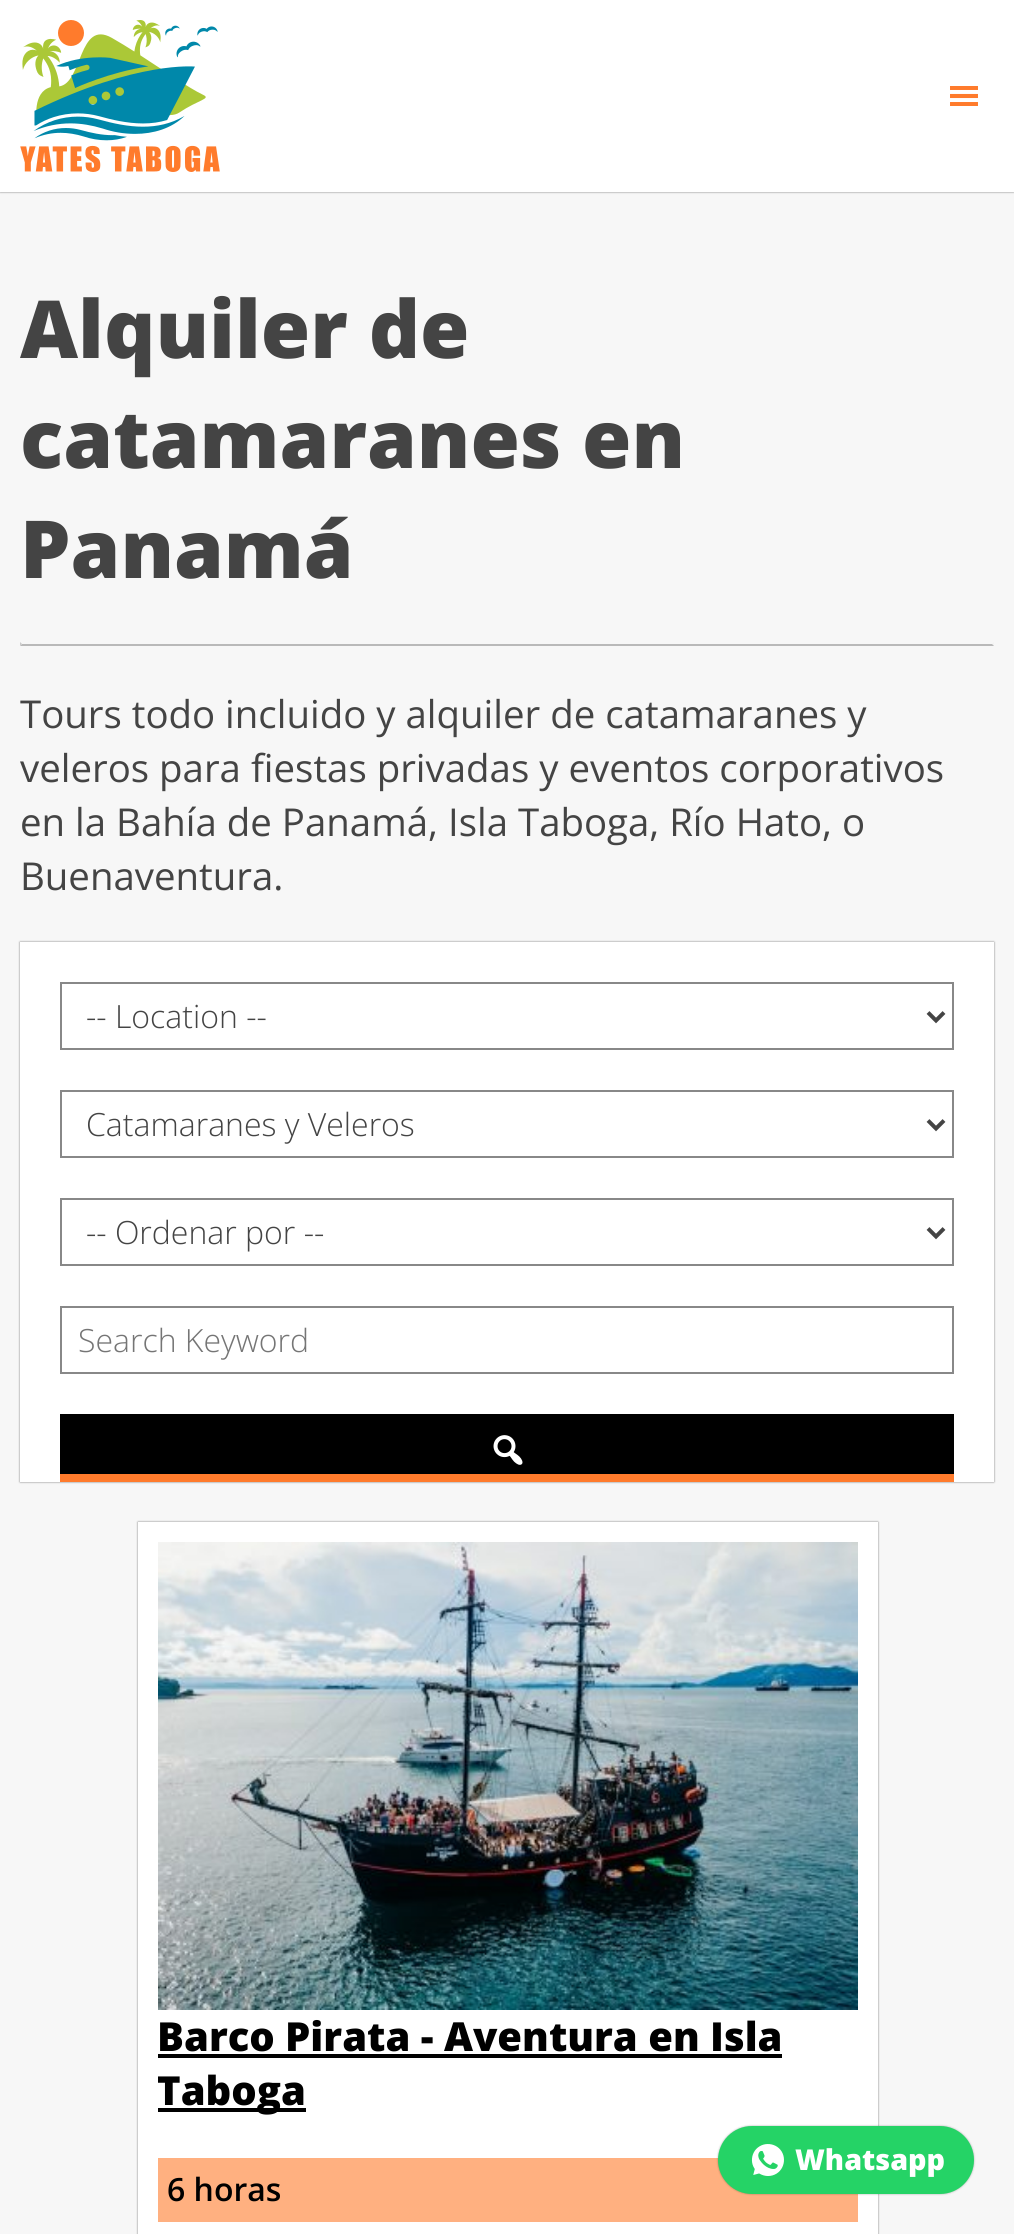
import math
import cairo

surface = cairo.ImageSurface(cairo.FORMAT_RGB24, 1014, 2234)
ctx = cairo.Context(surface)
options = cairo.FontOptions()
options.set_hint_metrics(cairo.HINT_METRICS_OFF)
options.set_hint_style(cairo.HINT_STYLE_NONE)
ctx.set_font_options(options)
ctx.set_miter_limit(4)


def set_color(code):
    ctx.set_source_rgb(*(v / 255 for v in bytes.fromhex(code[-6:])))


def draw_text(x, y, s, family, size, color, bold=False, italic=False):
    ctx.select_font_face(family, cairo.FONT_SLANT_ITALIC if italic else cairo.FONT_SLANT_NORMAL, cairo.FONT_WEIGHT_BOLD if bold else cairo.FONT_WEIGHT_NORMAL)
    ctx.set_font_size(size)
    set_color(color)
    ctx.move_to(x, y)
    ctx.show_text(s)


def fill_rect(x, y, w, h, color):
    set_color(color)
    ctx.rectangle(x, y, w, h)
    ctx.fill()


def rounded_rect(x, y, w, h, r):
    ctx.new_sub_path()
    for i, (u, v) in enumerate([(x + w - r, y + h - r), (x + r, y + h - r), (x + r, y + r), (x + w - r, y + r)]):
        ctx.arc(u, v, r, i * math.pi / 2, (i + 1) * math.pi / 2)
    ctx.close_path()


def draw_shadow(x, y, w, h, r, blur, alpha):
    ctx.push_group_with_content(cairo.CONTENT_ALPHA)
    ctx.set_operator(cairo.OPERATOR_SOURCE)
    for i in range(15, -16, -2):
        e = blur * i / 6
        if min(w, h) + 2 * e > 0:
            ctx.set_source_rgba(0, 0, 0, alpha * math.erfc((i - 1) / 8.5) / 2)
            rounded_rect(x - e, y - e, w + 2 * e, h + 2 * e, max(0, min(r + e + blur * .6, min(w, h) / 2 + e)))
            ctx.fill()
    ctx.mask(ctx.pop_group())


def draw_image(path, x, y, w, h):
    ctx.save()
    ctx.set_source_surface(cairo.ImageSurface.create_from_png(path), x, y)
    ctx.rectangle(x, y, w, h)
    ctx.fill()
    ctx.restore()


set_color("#f7f7f7")
ctx.paint()
set_color("#000000")
draw_shadow(0, 0, 1014, 192, 0, 1, 0.5)
fill_rect(0, 0, 1014, 192, "#ffffff")
draw_image("assets/img1.png", 20, 20, 200, 152)
draw_image("assets/img2.png", 950, 86, 28, 20)
draw_text(20, 358, "Alquiler de", "Open Sans ExtraBold", 80, "#444444")
draw_text(20, 468, "catamaranes en", "Open Sans ExtraBold", 80, "#444444")
draw_text(20, 578, "Panamá", "Open Sans ExtraBold", 80, "#444444")
set_color("#f3f3f3")
ctx.new_path()
ctx.move_to(994, 642)
ctx.line_to(994, 646)
ctx.line_to(992, 644)
ctx.close_path()
ctx.fill()
set_color("#b9b9b9")
ctx.new_path()
ctx.move_to(994, 646)
ctx.line_to(20, 646)
ctx.line_to(22, 644)
ctx.line_to(992, 644)
ctx.close_path()
ctx.fill()
set_color("#cbcbcb")
ctx.new_path()
ctx.move_to(20, 646)
ctx.line_to(20, 642)
ctx.line_to(22, 644)
ctx.close_path()
ctx.fill()
draw_text(20, 728, "Tours todo incluido y alquiler de catamaranes y", "Open Sans", 38.4, "#444444")
draw_text(20, 782, "veleros para fiestas privadas y eventos corporativos", "Open Sans", 38.4, "#444444")
draw_text(20, 836, "en la Bahía de Panamá, Isla Taboga, Río Hato, o", "Open Sans", 38.4, "#444444")
draw_text(20, 890, "Buenaventura.", "Open Sans", 38.4, "#444444")
set_color("#000000")
draw_shadow(20, 942, 974, 540, 0, 1, 0.5)
fill_rect(20, 942, 974, 540, "#ffffff")
ctx.rectangle(61, 983, 892, 66)
set_color("#888888")
ctx.stroke()
ctx.new_path()
ctx.move_to(928, 1012.5)
ctx.line_to(936, 1020.5)
ctx.line_to(944, 1012.5)
set_color("#444444")
ctx.set_line_width(4)
ctx.stroke()
draw_text(86, 1028, "-- Location --", "Open Sans Light", 32, "#444444")
ctx.rectangle(61, 1091, 892, 66)
set_color("#888888")
ctx.set_line_width(2)
ctx.stroke()
ctx.new_path()
ctx.move_to(928, 1120.5)
ctx.line_to(936, 1128.5)
ctx.line_to(944, 1120.5)
set_color("#444444")
ctx.set_line_width(4)
ctx.stroke()
draw_text(86, 1136, "Catamaranes y Veleros", "Open Sans Light", 32, "#444444")
ctx.rectangle(61, 1199, 892, 66)
set_color("#888888")
ctx.set_line_width(2)
ctx.stroke()
ctx.new_path()
ctx.move_to(928, 1228.5)
ctx.line_to(936, 1236.5)
ctx.line_to(944, 1228.5)
set_color("#444444")
ctx.set_line_width(4)
ctx.stroke()
draw_text(86, 1244, "-- Ordenar por --", "Open Sans Light", 32, "#444444")
ctx.rectangle(61, 1307, 892, 66)
set_color("#888888")
ctx.set_line_width(2)
ctx.stroke()
draw_text(78, 1352, "Search Keyword", "Open Sans Light", 32, "#757575")
fill_rect(60, 1414, 894, 60, "#000000")
fill_rect(60, 1474, 894, 8, "#ff7b2c")
draw_image("assets/img3.png", 493, 1435, 30, 30)
set_color("#000000")
draw_shadow(138, 1522, 740, 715, 0, 1, 0.5)
fill_rect(138, 1522, 740, 712, "#ffffff")
draw_image("assets/img4.png", 158, 1542, 700, 468)
draw_text(157, 2051, "Barco Pirata - Aventura en Isla", "Open Sans ExtraBold", 40, "#000000")
fill_rect(158, 2054, 624, 4, "#000000")
fill_rect(158, 2108, 148, 4, "#000000")
draw_text(157, 2105, "Taboga", "Open Sans ExtraBold", 40, "#000000")
fill_rect(158, 2158, 700, 64, "#ffb080")
draw_text(167, 2201, "6 horas", "Open Sans SemiBold", 32, "#000000")
set_color("#000000")
draw_shadow(718, 2126, 256, 68, 34, 1, 0.3)
set_color("#25d366")
rounded_rect(718, 2126, 256, 68, 34)
ctx.fill()
draw_image("assets/img5.png", 751, 2144, 33, 32)
draw_text(795, 2170, "Whatsapp", "Open Sans ExtraBold", 28.75, "#ffffff")
surface.write_to_png("output.png")
